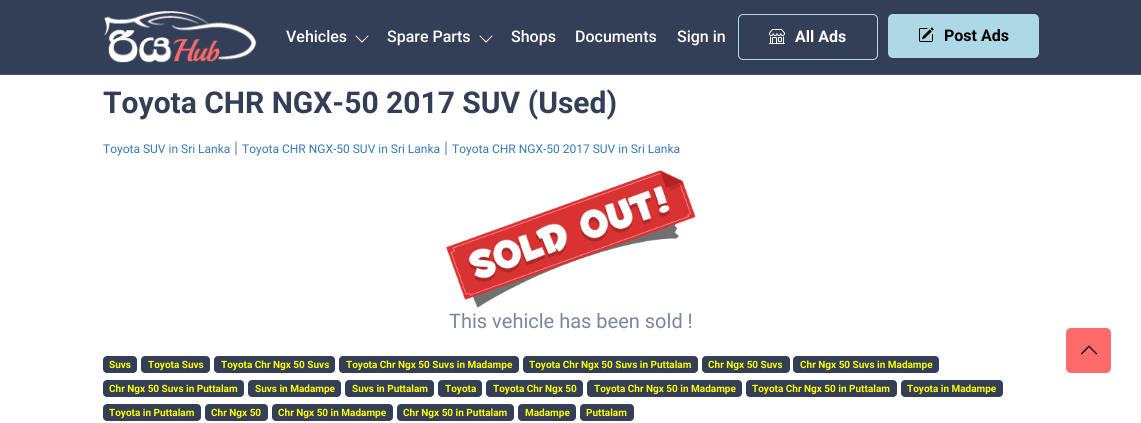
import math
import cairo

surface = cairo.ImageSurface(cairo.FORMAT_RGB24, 1141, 423)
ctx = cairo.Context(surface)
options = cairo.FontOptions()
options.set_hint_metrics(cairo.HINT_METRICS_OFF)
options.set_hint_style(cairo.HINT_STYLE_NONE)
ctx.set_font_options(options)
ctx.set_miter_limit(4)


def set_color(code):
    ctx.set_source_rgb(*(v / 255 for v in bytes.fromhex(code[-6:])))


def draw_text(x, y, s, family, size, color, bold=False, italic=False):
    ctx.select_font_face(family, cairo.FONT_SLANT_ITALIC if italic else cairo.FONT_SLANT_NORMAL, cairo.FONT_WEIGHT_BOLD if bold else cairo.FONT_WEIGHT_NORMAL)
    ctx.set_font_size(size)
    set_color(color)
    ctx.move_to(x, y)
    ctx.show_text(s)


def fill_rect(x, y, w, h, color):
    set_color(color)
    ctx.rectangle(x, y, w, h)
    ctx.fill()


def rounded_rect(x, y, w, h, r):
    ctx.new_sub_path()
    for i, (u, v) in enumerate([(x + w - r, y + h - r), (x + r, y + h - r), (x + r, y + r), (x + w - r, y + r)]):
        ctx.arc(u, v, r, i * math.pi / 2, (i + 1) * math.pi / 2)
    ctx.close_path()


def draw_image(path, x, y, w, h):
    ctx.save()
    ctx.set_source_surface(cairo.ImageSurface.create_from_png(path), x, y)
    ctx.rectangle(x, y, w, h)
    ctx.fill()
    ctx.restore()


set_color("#ffffff")
ctx.paint()
fill_rect(0, 0, 1141, 74, "#333f57")
fill_rect(0, 74, 1141, 1, "#49546b")
draw_image("assets/img1.png", 104, 11, 153, 52)
draw_text(286, 42, "Vehicles", "Roboto Medium", 16, "#ffffff")
draw_image("assets/img2.png", 355, 35, 14, 8)
draw_text(387, 42, "Spare Parts", "Roboto Medium", 16, "#ffffff")
draw_image("assets/img2.png", 479, 35, 14, 8)
draw_text(511, 42, "Shops", "Roboto Medium", 16, "#ffffff")
draw_text(575, 42, "Documents", "Roboto Medium", 16, "#ffffff")
draw_text(677, 42, "Sign in", "Roboto Medium", 16, "#ffffff")
rounded_rect(738.5, 14.5, 139, 45, 4.5)
set_color("#b5dce9")
ctx.set_line_width(1)
ctx.stroke()
draw_image("assets/img3.png", 769, 29, 16, 15)
draw_text(795, 42, "All Ads", "Roboto", 16, "#ffffff", bold=True)
set_color("#add8e6")
rounded_rect(888, 14, 151, 44, 5)
ctx.fill()
draw_image("assets/img4.png", 919, 27, 15, 15)
draw_text(944, 41, "Post Ads", "Roboto", 16, "#000000", bold=True)
draw_text(103, 113, "Toyota CHR NGX-50 2017 SUV (Used)", "Roboto", 30, "#333f57", bold=True)
draw_text(103, 153, "Toyota SUV in Sri Lanka", "Roboto", 12, "#337ab7")
draw_text(234, 153, "|", "Roboto", 16, "#7c869a")
draw_text(242, 153, "Toyota CHR NGX-50 SUV in Sri Lanka", "Roboto", 12, "#337ab7")
draw_text(444, 153, "|", "Roboto", 16, "#7c869a")
draw_text(452, 153, "Toyota CHR NGX-50 2017 SUV in Sri Lanka", "Roboto", 12, "#337ab7")
draw_image("assets/img5.png", 446, 170, 250, 138)
draw_text(449, 328, "This vehicle has been sold !", "Roboto", 20, "#7c869a")
set_color("#333f57")
rounded_rect(103, 356, 34, 17, 4)
ctx.fill()
draw_text(109, 368, "Suvs", "Roboto", 10, "#ffff00", bold=True)
set_color("#333f57")
rounded_rect(141, 356, 69, 17, 4)
ctx.fill()
draw_text(148, 368, "Toyota Suvs", "Roboto", 10, "#ffff00", bold=True)
set_color("#333f57")
rounded_rect(214, 356, 121, 17, 4)
ctx.fill()
draw_text(221, 368, "Toyota Chr Ngx 50 Suvs", "Roboto", 10, "#ffff00", bold=True)
set_color("#333f57")
rounded_rect(339, 356, 180, 17, 4)
ctx.fill()
draw_text(346, 368, "Toyota Chr Ngx 50 Suvs in Madampe", "Roboto", 10, "#ffff00", bold=True)
set_color("#333f57")
rounded_rect(523, 356, 175, 17, 4)
ctx.fill()
draw_text(529, 368, "Toyota Chr Ngx 50 Suvs in Puttalam", "Roboto", 10, "#ffff00", bold=True)
set_color("#333f57")
rounded_rect(702, 356, 88, 17, 4)
ctx.fill()
draw_text(708, 368, "Chr Ngx 50 Suvs", "Roboto", 10, "#ffff00", bold=True)
set_color("#333f57")
rounded_rect(793, 356, 146, 17, 4)
ctx.fill()
draw_text(800, 368, "Chr Ngx 50 Suvs in Madampe", "Roboto", 10, "#ffff00", bold=True)
set_color("#333f57")
rounded_rect(103, 380, 141, 17, 4)
ctx.fill()
draw_text(109, 392, "Chr Ngx 50 Suvs in Puttalam", "Roboto", 10, "#ffff00", bold=True)
set_color("#333f57")
rounded_rect(248, 380, 93, 17, 4)
ctx.fill()
draw_text(255, 392, "Suvs in Madampe", "Roboto", 10, "#ffff00", bold=True)
set_color("#333f57")
rounded_rect(345, 380, 89, 17, 4)
ctx.fill()
draw_text(352, 392, "Suvs in Puttalam", "Roboto", 10, "#ffff00", bold=True)
set_color("#333f57")
rounded_rect(438, 380, 44, 17, 4)
ctx.fill()
draw_text(445, 392, "Toyota", "Roboto", 10, "#ffff00", bold=True)
set_color("#333f57")
rounded_rect(486, 380, 97, 17, 4)
ctx.fill()
draw_text(493, 392, "Toyota Chr Ngx 50", "Roboto", 10, "#ffff00", bold=True)
set_color("#333f57")
rounded_rect(587, 380, 155, 17, 4)
ctx.fill()
draw_text(594, 392, "Toyota Chr Ngx 50 in Madampe", "Roboto", 10, "#ffff00", bold=True)
set_color("#333f57")
rounded_rect(746, 380, 151, 17, 4)
ctx.fill()
draw_text(752, 392, "Toyota Chr Ngx 50 in Puttalam", "Roboto", 10, "#ffff00", bold=True)
set_color("#333f57")
rounded_rect(901, 380, 102, 17, 4)
ctx.fill()
draw_text(907, 392, "Toyota in Madampe", "Roboto", 10, "#ffff00", bold=True)
set_color("#333f57")
rounded_rect(103, 404, 98, 17, 4)
ctx.fill()
draw_text(109, 416, "Toyota in Puttalam", "Roboto", 10, "#ffff00", bold=True)
set_color("#333f57")
rounded_rect(205, 404, 63, 17, 4)
ctx.fill()
draw_text(211, 416, "Chr Ngx 50", "Roboto", 10, "#ffff00", bold=True)
set_color("#333f57")
rounded_rect(272, 404, 121, 17, 4)
ctx.fill()
draw_text(278, 416, "Chr Ngx 50 in Madampe", "Roboto", 10, "#ffff00", bold=True)
set_color("#333f57")
rounded_rect(397, 404, 117, 17, 4)
ctx.fill()
draw_text(403, 416, "Chr Ngx 50 in Puttalam", "Roboto", 10, "#ffff00", bold=True)
set_color("#333f57")
rounded_rect(518, 404, 58, 17, 4)
ctx.fill()
draw_text(525, 416, "Madampe", "Roboto", 10, "#ffff00", bold=True)
set_color("#333f57")
rounded_rect(580, 404, 54, 17, 4)
ctx.fill()
draw_text(586, 416, "Puttalam", "Roboto", 10, "#ffff00", bold=True)
set_color("#ff6b6b")
rounded_rect(1066, 328, 45, 45, 5)
ctx.fill()
draw_image("assets/img6.png", 1080, 345, 18, 10)
surface.write_to_png("output.png")
